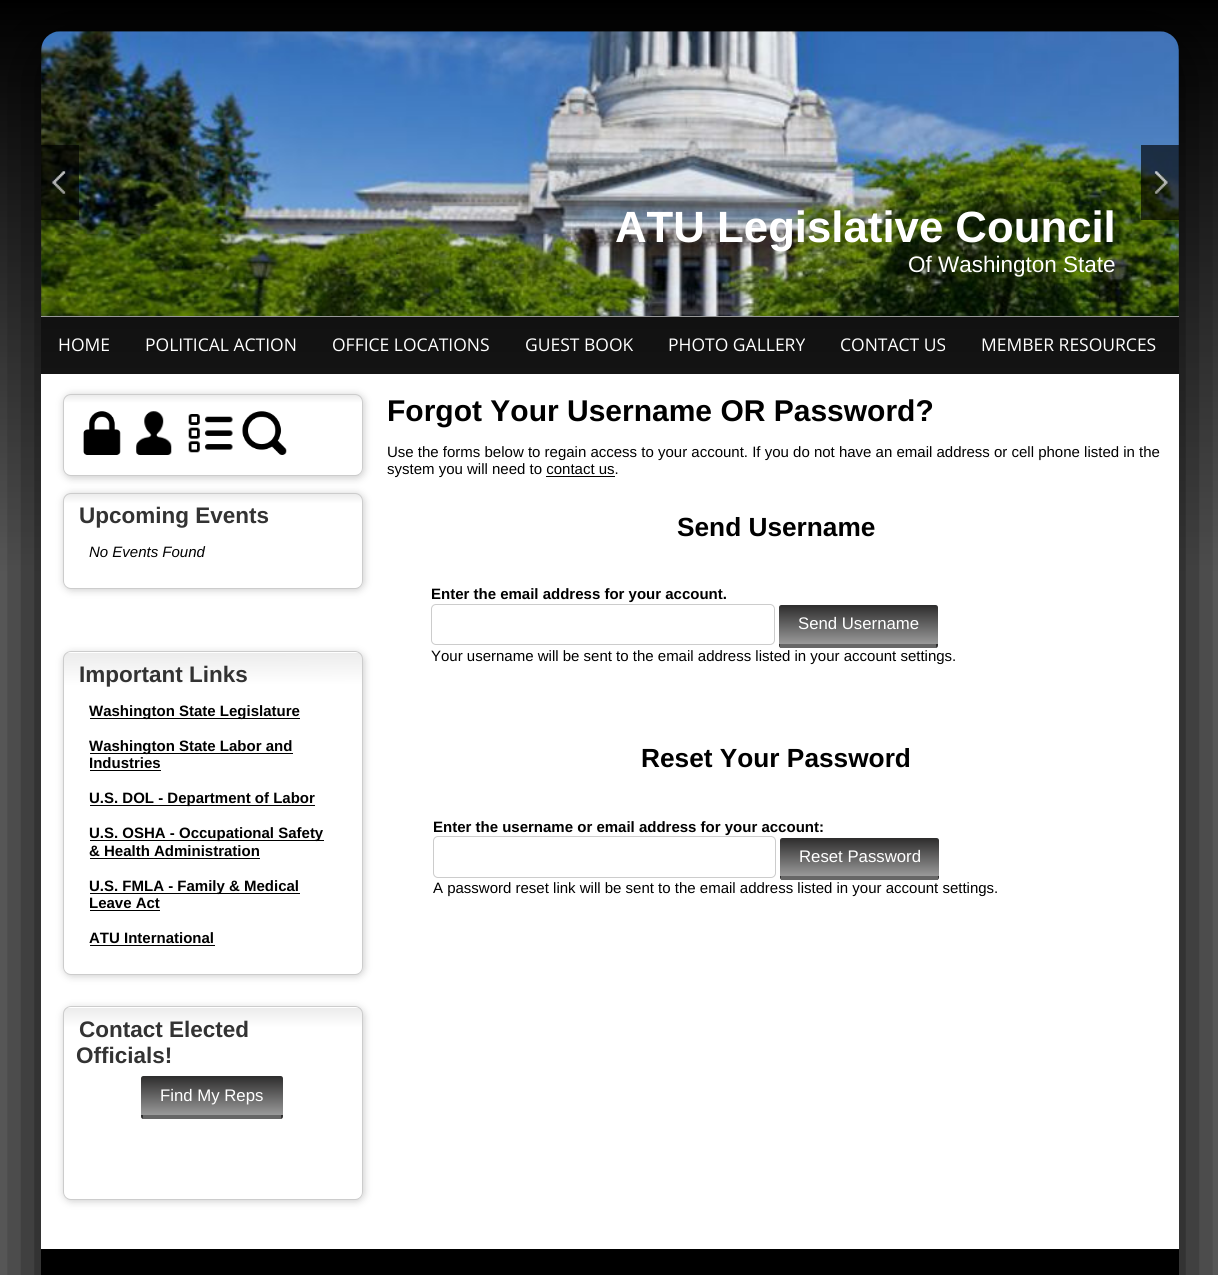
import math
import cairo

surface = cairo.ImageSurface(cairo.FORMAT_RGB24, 1218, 1275)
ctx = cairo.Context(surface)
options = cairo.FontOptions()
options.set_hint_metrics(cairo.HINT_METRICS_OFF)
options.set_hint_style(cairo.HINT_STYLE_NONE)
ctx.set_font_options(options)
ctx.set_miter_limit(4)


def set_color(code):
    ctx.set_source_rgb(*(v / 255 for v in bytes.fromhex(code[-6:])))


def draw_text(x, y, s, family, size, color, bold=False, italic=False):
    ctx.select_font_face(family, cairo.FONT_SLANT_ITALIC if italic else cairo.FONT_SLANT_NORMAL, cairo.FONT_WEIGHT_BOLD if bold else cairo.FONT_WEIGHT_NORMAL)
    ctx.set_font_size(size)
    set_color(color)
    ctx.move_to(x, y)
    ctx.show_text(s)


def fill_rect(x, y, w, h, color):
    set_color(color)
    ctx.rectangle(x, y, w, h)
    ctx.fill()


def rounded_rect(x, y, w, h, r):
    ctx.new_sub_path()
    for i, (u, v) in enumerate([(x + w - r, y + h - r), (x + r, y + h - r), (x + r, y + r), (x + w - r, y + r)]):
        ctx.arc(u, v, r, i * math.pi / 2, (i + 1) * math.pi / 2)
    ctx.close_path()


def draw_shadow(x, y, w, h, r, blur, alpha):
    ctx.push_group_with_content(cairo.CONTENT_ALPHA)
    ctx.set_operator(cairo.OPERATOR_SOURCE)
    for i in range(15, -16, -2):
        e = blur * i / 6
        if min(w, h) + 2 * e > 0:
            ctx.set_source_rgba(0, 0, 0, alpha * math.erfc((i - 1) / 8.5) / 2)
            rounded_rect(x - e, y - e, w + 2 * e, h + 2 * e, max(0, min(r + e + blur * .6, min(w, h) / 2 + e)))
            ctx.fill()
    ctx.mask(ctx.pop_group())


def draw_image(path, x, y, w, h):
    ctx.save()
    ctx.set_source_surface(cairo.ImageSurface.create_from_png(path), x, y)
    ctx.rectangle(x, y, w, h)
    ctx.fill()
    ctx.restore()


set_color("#ffffff")
ctx.paint()
gradient = cairo.LinearGradient(609, 0, 609, 1275)
gradient.add_color_stop_rgba(0, 0, 0, 0, 1)
gradient.add_color_stop_rgba(0.45, 0.4, 0.4, 0.4, 1)
ctx.set_source(gradient)
ctx.rectangle(0, 0, 1218, 1275)
ctx.fill()
ctx.save()
ctx.set_fill_rule(cairo.FILL_RULE_EVEN_ODD)
ctx.new_path()
ctx.move_to(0, 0)
ctx.line_to(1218, 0)
ctx.line_to(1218, 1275)
ctx.line_to(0, 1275)
ctx.close_path()
ctx.move_to(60, 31)
ctx.line_to(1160, 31)
ctx.curve_to(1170.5, 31, 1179, 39.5, 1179, 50)
ctx.line_to(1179, 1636)
ctx.line_to(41, 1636)
ctx.line_to(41, 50)
ctx.curve_to(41, 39.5, 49.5, 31, 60, 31)
ctx.close_path()
ctx.clip()
set_color("#000000")
draw_shadow(41, 43, 1138, 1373, 19, 40.5, 1)
ctx.restore()
draw_image("assets/img1.png", 41, 31, 1138, 285)
ctx.set_source_rgba(0, 0, 0, 0.65)
ctx.rectangle(41, 145, 38, 75)
ctx.fill()
draw_image("assets/img2.png", 52, 171, 14, 24)
ctx.rectangle(1141, 145, 38, 75)
ctx.fill()
draw_image("assets/img3.png", 1154, 171, 14, 24)
draw_text(615, 242, "ATU Legislative Council", "Liberation Sans", 43.75, "#ffffff", bold=True)
draw_text(908, 272, "Of Washington State", "Liberation Sans", 22.5, "#ffffff")
ctx.set_source_rgba(0, 0, 0, 0.7)
ctx.rectangle(41, 317, 1138, 57)
ctx.fill()
fill_rect(41, 316, 1138, 1, "#999999")
draw_text(58, 351, "HOME", "Open Sans", 17.5, "#ffffff")
draw_text(145, 351, "POLITICAL ACTION", "Open Sans", 17.5, "#ffffff")
draw_text(332, 351, "OFFICE LOCATIONS", "Open Sans", 17.5, "#ffffff")
draw_text(525, 351, "GUEST BOOK", "Open Sans", 17.5, "#ffffff")
draw_text(668, 351, "PHOTO GALLERY", "Open Sans", 17.5, "#ffffff")
draw_text(840, 351, "CONTACT US", "Open Sans", 17.5, "#ffffff")
draw_text(981, 351, "MEMBER RESOURCES", "Open Sans", 17.5, "#ffffff")
fill_rect(41, 374, 1138, 875, "#ffffff")
set_color("#cccccc")
draw_shadow(64, 395, 300, 83, 8, 4, 1)
ctx.save()
rounded_rect(63, 394, 300, 82, 8)
ctx.clip()
gradient = cairo.LinearGradient(213, 395, 213, 475)
gradient.add_color_stop_rgba(0, 0.925, 0.925, 0.925, 1)
gradient.add_color_stop_rgba(0.1, 1, 1, 1, 1)
ctx.set_source(gradient)
ctx.rectangle(63, 395, 300, 80)
ctx.fill()
ctx.restore()
rounded_rect(63.5, 394.5, 299, 81, 7.5)
set_color("#cccccc")
ctx.set_line_width(1)
ctx.stroke()
draw_image("assets/img4.png", 83, 411, 38, 44)
draw_image("assets/img5.png", 136, 411, 36, 44)
draw_image("assets/img6.png", 188, 414, 45, 39)
draw_image("assets/img7.png", 242, 411, 45, 44)
set_color("#cccccc")
draw_shadow(64, 494, 300, 96, 8, 4, 1)
ctx.save()
rounded_rect(63, 493, 300, 96, 8)
ctx.clip()
gradient = cairo.LinearGradient(213, 494, 213, 588)
gradient.add_color_stop_rgba(0, 0.925, 0.925, 0.925, 1)
gradient.add_color_stop_rgba(0.1, 1, 1, 1, 1)
ctx.set_source(gradient)
ctx.rectangle(63, 494, 300, 94)
ctx.fill()
ctx.restore()
rounded_rect(63.5, 493.5, 299, 95, 7.5)
set_color("#cccccc")
ctx.stroke()
draw_text(79, 523, "Upcoming Events", "Liberation Sans", 22.5, "#333333", bold=True)
draw_text(89, 557, "No Events Found", "Liberation Sans", 15, "#000000", italic=True)
set_color("#cccccc")
draw_shadow(64, 653, 300, 323, 8, 4, 1)
ctx.save()
rounded_rect(63, 651, 300, 324, 8)
ctx.clip()
gradient = cairo.LinearGradient(212, 331, 213, 653)
gradient.add_color_stop_rgba(0, 0.925, 0.925, 0.925, 1)
gradient.add_color_stop_rgba(0.1, 1, 1, 1, 1)
ctx.set_source(gradient)
ctx.rectangle(63, 651, 300, 2)
ctx.fill()
gradient = cairo.LinearGradient(212, 653, 213, 974)
gradient.add_color_stop_rgba(0, 0.925, 0.925, 0.925, 1)
gradient.add_color_stop_rgba(0.1, 1, 1, 1, 1)
ctx.set_source(gradient)
ctx.rectangle(63, 653, 300, 321)
ctx.fill()
ctx.restore()
rounded_rect(63.5, 651.5, 299, 323, 7.5)
set_color("#cccccc")
ctx.stroke()
draw_text(79, 682, "Important Links", "Liberation Sans", 22.5, "#333333", bold=True)
fill_rect(90, 718, 210, 1, "#000000")
draw_text(89, 716, "Washington State Legislature", "Liberation Sans", 15, "#000000", bold=True)
fill_rect(90, 753, 203, 1, "#000000")
draw_text(89, 751, "Washington State Labor and", "Liberation Sans", 15, "#000000", bold=True)
draw_text(89, 768, "Industries", "Liberation Sans", 15, "#000000", bold=True)
fill_rect(90, 770, 71, 1, "#000000")
fill_rect(90, 805, 225, 1, "#000000")
draw_text(89, 803, "U.S. DOL - Department of Labor", "Liberation Sans", 15, "#000000", bold=True)
fill_rect(90, 840, 234, 1, "#000000")
draw_text(89, 838, "U.S. OSHA - Occupational Safety", "Liberation Sans", 15, "#000000", bold=True)
draw_text(89, 856, "& Health Administration", "Liberation Sans", 15, "#000000", bold=True)
fill_rect(90, 858, 170, 1, "#000000")
fill_rect(90, 893, 210, 1, "#000000")
draw_text(89, 891, "U.S. FMLA - Family & Medical", "Liberation Sans", 15, "#000000", bold=True)
draw_text(89, 908, "Leave Act", "Liberation Sans", 15, "#000000", bold=True)
fill_rect(90, 910, 70, 1, "#000000")
draw_text(89, 943, "ATU International", "Liberation Sans", 15, "#000000", bold=True)
fill_rect(90, 945, 125, 1, "#000000")
set_color("#cccccc")
draw_shadow(64, 1008, 300, 193, 8, 4, 1)
ctx.save()
rounded_rect(63, 1006, 300, 194, 8)
ctx.clip()
gradient = cairo.LinearGradient(213, 816, 213, 1008)
gradient.add_color_stop_rgba(0, 0.925, 0.925, 0.925, 1)
gradient.add_color_stop_rgba(0.1, 1, 1, 1, 1)
ctx.set_source(gradient)
ctx.rectangle(63, 1006, 300, 2)
ctx.fill()
gradient = cairo.LinearGradient(213, 1008, 213, 1199)
gradient.add_color_stop_rgba(0, 0.925, 0.925, 0.925, 1)
gradient.add_color_stop_rgba(0.1, 1, 1, 1, 1)
ctx.set_source(gradient)
ctx.rectangle(63, 1008, 300, 191)
ctx.fill()
ctx.restore()
rounded_rect(63.5, 1006.5, 299, 193, 7.5)
set_color("#cccccc")
ctx.stroke()
draw_text(79, 1037, "Contact Elected", "Liberation Sans", 22.5, "#333333", bold=True)
draw_text(76, 1063, "Officials!", "Liberation Sans", 22.5, "#333333", bold=True)
gradient = cairo.LinearGradient(212, 1076, 212, 1115)
gradient.add_color_stop_rgba(0, 0.176, 0.173, 0.173, 1)
gradient.add_color_stop_rgba(1, 0.6, 0.6, 0.6, 1)
ctx.set_source(gradient)
ctx.new_path()
ctx.move_to(143.5, 1076)
ctx.line_to(280.5, 1076)
ctx.curve_to(282, 1076, 283, 1077, 283, 1078.5)
ctx.line_to(283, 1115)
ctx.line_to(141, 1115)
ctx.line_to(141, 1078.5)
ctx.curve_to(141, 1077, 142, 1076, 143.5, 1076)
ctx.close_path()
ctx.fill()
gradient = cairo.LinearGradient(212, 1115, 212, 1154)
gradient.add_color_stop_rgba(0, 0.176, 0.173, 0.173, 1)
gradient.add_color_stop_rgba(1, 0.6, 0.6, 0.6, 1)
ctx.set_source(gradient)
ctx.new_path()
ctx.move_to(141, 1115)
ctx.line_to(283, 1115)
ctx.line_to(283, 1116.5)
ctx.curve_to(283, 1118, 282, 1119, 280.5, 1119)
ctx.line_to(143.5, 1119)
ctx.curve_to(142, 1119, 141, 1118, 141, 1116.5)
ctx.close_path()
ctx.fill()
fill_rect(143, 1115, 138, 4, "#666666")
draw_text(160, 1101, "Find My Reps", "Liberation Sans", 16.75, "#ffffff")
draw_text(387, 421, "Forgot Your Username OR Password?", "Liberation Sans", 30, "#000000", bold=True)
draw_text(387, 457, "Use the forms below to regain access to your account. If you do not have an email address or cell phone listed in the", "Liberation Sans", 15, "#000000")
draw_text(387, 474, "system you will need to contact us.", "Liberation Sans", 15, "#000000")
fill_rect(546, 476, 69, 1, "#000000")
draw_text(677, 536, "Send Username", "Liberation Sans", 26.25, "#000000", bold=True)
draw_text(431, 599, "Enter the email address for your account.", "Liberation Sans", 15, "#000000", bold=True)
rounded_rect(431.5, 604.5, 343, 40, 4.5)
set_color("#cccccc")
ctx.stroke()
gradient = cairo.LinearGradient(858, 605, 858, 644)
gradient.add_color_stop_rgba(0, 0.176, 0.173, 0.173, 1)
gradient.add_color_stop_rgba(1, 0.6, 0.6, 0.6, 1)
ctx.set_source(gradient)
ctx.new_path()
ctx.move_to(781.5, 605)
ctx.line_to(935.5, 605)
ctx.curve_to(937, 605, 938, 606, 938, 607.5)
ctx.line_to(938, 644)
ctx.line_to(779, 644)
ctx.line_to(779, 607.5)
ctx.curve_to(779, 606, 780, 605, 781.5, 605)
ctx.close_path()
ctx.fill()
gradient = cairo.LinearGradient(858, 644, 858, 683)
gradient.add_color_stop_rgba(0, 0.176, 0.173, 0.173, 1)
gradient.add_color_stop_rgba(1, 0.6, 0.6, 0.6, 1)
ctx.set_source(gradient)
ctx.new_path()
ctx.move_to(779, 644)
ctx.line_to(938, 644)
ctx.line_to(938, 645.5)
ctx.curve_to(938, 647, 937, 648, 935.5, 648)
ctx.line_to(781.5, 648)
ctx.curve_to(780, 648, 779, 647, 779, 645.5)
ctx.close_path()
ctx.fill()
fill_rect(780, 644, 156, 4, "#666666")
draw_text(798, 629, "Send Username", "Liberation Sans", 16.75, "#ffffff")
draw_text(431, 661, "Your username will be sent to the email address listed in your account settings.", "Liberation Sans", 15, "#000000")
draw_text(641, 767, "Reset Your Password", "Liberation Sans", 26.25, "#000000", bold=True)
draw_text(433, 832, "Enter the username or email address for your account:", "Liberation Sans", 15, "#000000", bold=True)
rounded_rect(433.5, 836.5, 342, 41, 4.5)
set_color("#cccccc")
ctx.stroke()
gradient = cairo.LinearGradient(859, 838, 859, 876)
gradient.add_color_stop_rgba(0, 0.176, 0.173, 0.173, 1)
gradient.add_color_stop_rgba(1, 0.6, 0.6, 0.6, 1)
ctx.set_source(gradient)
ctx.new_path()
ctx.move_to(782.5, 838)
ctx.line_to(936.5, 838)
ctx.curve_to(938, 838, 939, 839, 939, 840.5)
ctx.line_to(939, 876)
ctx.line_to(780, 876)
ctx.line_to(780, 840.5)
ctx.curve_to(780, 839, 781, 838, 782.5, 838)
ctx.close_path()
ctx.fill()
gradient = cairo.LinearGradient(859, 876, 859, 915)
gradient.add_color_stop_rgba(0, 0.176, 0.173, 0.173, 1)
gradient.add_color_stop_rgba(1, 0.6, 0.6, 0.6, 1)
ctx.set_source(gradient)
ctx.new_path()
ctx.move_to(780, 876)
ctx.line_to(939, 876)
ctx.line_to(939, 877.5)
ctx.curve_to(939, 879, 938, 880, 936.5, 880)
ctx.line_to(782.5, 880)
ctx.curve_to(781, 880, 780, 879, 780, 877.5)
ctx.close_path()
ctx.fill()
fill_rect(781, 876, 157, 4, "#666666")
draw_text(799, 862, "Reset Password", "Liberation Sans", 16.75, "#ffffff")
draw_text(433, 893, "A password reset link will be sent to the email address listed in your account settings.", "Liberation Sans", 15, "#000000")
fill_rect(41, 1249, 1138, 26, "#000000")
surface.write_to_png("output.png")
